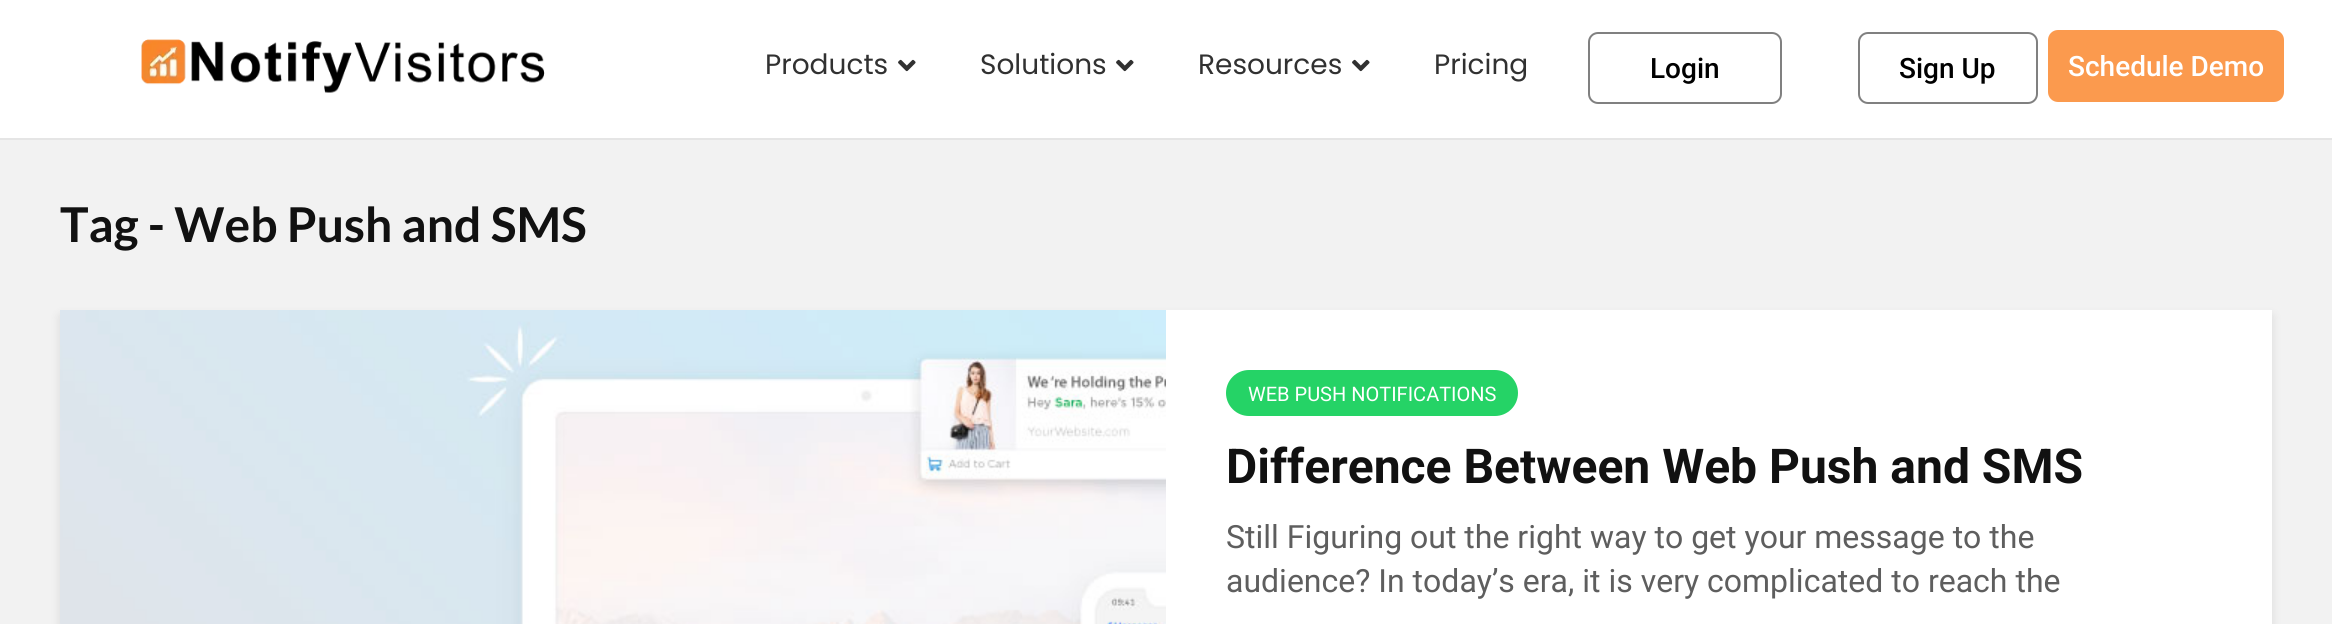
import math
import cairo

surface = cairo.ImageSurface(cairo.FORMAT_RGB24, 2332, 624)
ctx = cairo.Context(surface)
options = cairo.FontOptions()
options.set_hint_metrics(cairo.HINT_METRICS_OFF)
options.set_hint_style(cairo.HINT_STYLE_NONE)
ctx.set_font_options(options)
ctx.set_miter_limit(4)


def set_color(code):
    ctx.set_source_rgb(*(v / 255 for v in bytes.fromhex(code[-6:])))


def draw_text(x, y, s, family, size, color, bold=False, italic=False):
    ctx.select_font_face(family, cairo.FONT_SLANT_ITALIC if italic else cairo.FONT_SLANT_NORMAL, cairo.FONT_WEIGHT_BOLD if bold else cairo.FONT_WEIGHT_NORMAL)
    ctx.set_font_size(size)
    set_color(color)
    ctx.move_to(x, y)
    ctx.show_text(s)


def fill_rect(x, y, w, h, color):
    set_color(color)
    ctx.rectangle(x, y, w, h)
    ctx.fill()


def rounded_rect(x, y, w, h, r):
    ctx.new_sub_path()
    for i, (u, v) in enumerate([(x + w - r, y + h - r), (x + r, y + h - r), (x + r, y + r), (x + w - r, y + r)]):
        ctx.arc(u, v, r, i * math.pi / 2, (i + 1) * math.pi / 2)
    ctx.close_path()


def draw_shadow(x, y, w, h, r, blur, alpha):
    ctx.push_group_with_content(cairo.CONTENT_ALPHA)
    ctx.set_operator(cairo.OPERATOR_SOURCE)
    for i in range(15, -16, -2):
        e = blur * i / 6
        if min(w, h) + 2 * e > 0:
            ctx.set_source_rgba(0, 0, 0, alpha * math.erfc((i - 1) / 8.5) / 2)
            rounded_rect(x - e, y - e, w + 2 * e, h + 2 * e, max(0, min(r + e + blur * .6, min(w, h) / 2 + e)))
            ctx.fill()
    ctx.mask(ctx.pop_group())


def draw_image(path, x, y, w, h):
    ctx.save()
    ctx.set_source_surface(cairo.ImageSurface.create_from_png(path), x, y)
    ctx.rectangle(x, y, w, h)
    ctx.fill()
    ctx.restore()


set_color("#f2f2f2")
ctx.paint()
fill_rect(0, 0, 2332, 138, "#ffffff")
fill_rect(0, 138, 2332, 2, "#e5e5e5")
draw_image("assets/img1.png", 141, 39, 404, 54)
draw_text(765, 74, "Products", "Poppins", 28, "#313131")
draw_image("assets/img2.png", 898, 59, 18, 13)
draw_text(980, 74, "Solutions", "Poppins", 28, "#313131")
draw_image("assets/img2.png", 1116, 59, 18, 13)
draw_text(1198, 74, "Resources", "Poppins", 28, "#313131")
draw_image("assets/img2.png", 1352, 59, 18, 13)
draw_text(1434, 74, "Pricing", "Poppins", 28, "#313131")
rounded_rect(1589, 33, 192, 70, 9)
set_color("#808080")
ctx.stroke()
draw_text(1650, 78, "Login", "Roboto Medium", 28, "#000000")
rounded_rect(1859, 33, 178, 70, 9)
set_color("#808080")
ctx.stroke()
draw_text(1899, 78, "Sign Up", "Roboto Medium", 28, "#000000")
set_color("#fb9a4e")
rounded_rect(2048, 30, 236, 72, 10)
ctx.fill()
draw_text(2068, 76, "Schedule Demo", "Roboto Medium", 28, "#ffffff")
draw_text(60, 242, "Tag - Web Push and SMS", "Lato", 48, "#111111", bold=True)
set_color("#000101")
draw_shadow(60, 316, 2212, 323, 0, 5, 0.1)
fill_rect(1166, 310, 1106, 314, "#ffffff")
draw_image("assets/img3.png", 60, 310, 1106, 314)
set_color("#25d366")
rounded_rect(1226, 370, 292, 46, 23)
ctx.fill()
draw_text(1248, 401, "WEB PUSH NOTIFICATIONS", "Roboto", 20, "#ffffff")
draw_text(1226, 483, "Difference Between Web Push and SMS", "Roboto", 48, "#111111", bold=True)
draw_text(1226, 548, "Still Figuring out the right way to get your message to the", "Roboto", 32, "#5e5e5e")
draw_text(1226, 592, "audience? In today’s era, it is very complicated to reach the", "Roboto", 32, "#5e5e5e")
surface.write_to_png("output.png")
